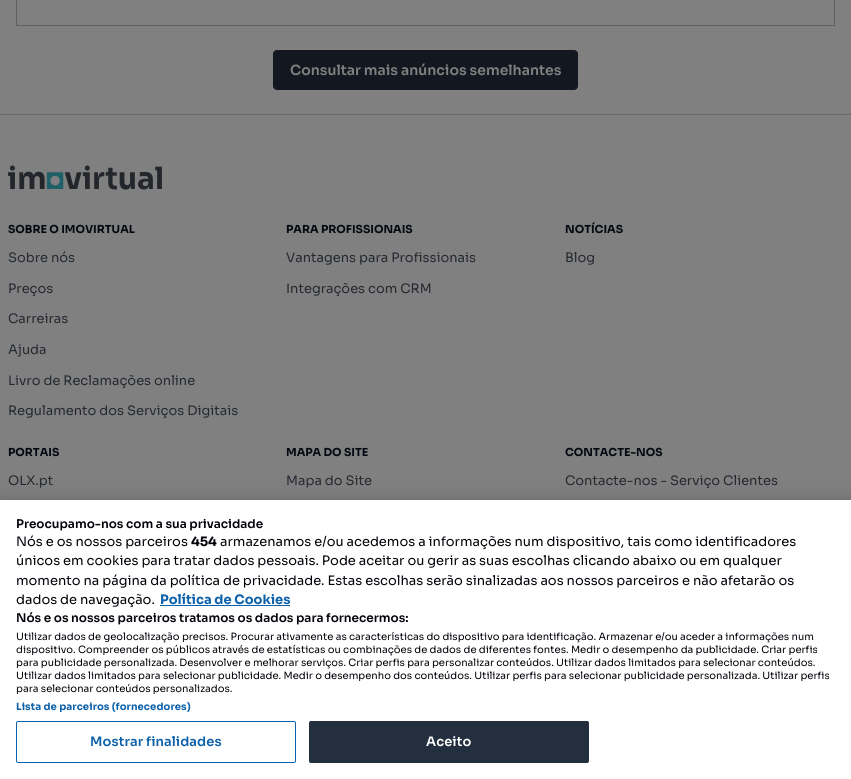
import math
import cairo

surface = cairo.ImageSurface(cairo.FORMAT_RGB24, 851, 779)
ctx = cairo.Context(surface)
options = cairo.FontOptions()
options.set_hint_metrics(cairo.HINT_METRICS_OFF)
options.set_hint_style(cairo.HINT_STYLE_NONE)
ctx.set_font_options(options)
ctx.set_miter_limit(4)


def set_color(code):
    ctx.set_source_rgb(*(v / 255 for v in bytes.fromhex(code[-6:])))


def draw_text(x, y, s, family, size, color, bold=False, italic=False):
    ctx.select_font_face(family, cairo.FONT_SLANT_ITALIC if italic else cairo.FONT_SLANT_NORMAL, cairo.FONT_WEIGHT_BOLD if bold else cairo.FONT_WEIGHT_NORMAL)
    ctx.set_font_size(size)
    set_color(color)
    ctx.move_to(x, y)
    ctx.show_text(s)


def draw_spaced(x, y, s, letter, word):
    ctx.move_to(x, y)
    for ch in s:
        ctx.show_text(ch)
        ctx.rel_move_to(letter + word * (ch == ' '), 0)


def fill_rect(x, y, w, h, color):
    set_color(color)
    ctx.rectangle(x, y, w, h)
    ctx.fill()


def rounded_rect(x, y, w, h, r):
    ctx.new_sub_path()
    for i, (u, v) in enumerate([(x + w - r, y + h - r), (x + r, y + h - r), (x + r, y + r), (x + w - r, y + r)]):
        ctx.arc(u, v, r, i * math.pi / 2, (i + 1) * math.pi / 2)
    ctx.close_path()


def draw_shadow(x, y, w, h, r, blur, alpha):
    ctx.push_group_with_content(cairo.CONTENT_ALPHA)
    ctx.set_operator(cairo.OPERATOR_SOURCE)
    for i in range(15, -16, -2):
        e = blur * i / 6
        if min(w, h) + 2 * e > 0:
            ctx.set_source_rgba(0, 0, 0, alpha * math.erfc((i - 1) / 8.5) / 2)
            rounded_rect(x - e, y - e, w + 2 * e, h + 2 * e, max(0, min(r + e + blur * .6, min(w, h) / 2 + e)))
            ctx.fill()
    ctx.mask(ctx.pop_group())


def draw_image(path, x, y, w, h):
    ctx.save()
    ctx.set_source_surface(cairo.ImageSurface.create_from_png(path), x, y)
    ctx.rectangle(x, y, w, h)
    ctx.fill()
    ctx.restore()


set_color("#808080")
ctx.paint()
ctx.rectangle(16.5, -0.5, 818, 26)
set_color("#5f5f5f")
ctx.set_line_width(1)
ctx.stroke()
set_color("#121720")
rounded_rect(273.5, 50.5, 304, 39, 3.5)
ctx.fill_preserve()
ctx.stroke()
draw_text(290, 75, "Consultar mais anúncios semelhantes", "Sora SemiBold", 14, "#808080")
fill_rect(0, 114, 851, 1, "#6a6b6d")
draw_image("assets/img1.png", 8, 165, 154, 25)
draw_text(8, 233, "SOBRE O IMOVIRTUAL", "Sora", 11, "#040911", bold=True)
draw_text(8, 262, "Sobre nós", "Sora", 13, "#252930")
draw_text(8, 293, "Preços", "Sora", 13, "#252930")
draw_text(8, 323, "Carreiras", "Sora", 13, "#252930")
draw_text(8, 354, "Ajuda", "Sora", 13, "#252930")
draw_text(8, 385, "Livro de Reclamações online", "Sora", 13, "#252930")
draw_text(8, 415, "Regulamento dos Serviços Digitais", "Sora", 13, "#252930")
draw_text(286, 233, "PARA PROFISSIONAIS", "Sora", 11, "#040911", bold=True)
draw_text(286, 262, "Vantagens para Profissionais", "Sora", 13, "#252930")
draw_text(286, 293, "Integrações com CRM", "Sora", 13, "#252930")
draw_text(565, 233, "NOTÍCIAS", "Sora", 11, "#040911", bold=True)
draw_text(565, 262, "Blog", "Sora", 13, "#252930")
draw_text(8, 456, "PORTAIS", "Sora", 11, "#040911", bold=True)
draw_text(8, 485, "OLX.pt", "Sora", 13, "#252930")
draw_text(286, 456, "MAPA DO SITE", "Sora", 11, "#040911", bold=True)
draw_text(286, 485, "Mapa do Site", "Sora", 13, "#252930")
draw_text(565, 456, "CONTACTE-NOS", "Sora", 11, "#040911", bold=True)
draw_text(565, 485, "Contacte-nos - Serviço Clientes", "Sora", 13, "#252930")
set_color("#000000")
draw_shadow(0, 500, 851, 279, 0, 9, 0.2)
fill_rect(0, 500, 851, 279, "#ffffff")
draw_text(16, 528, "Preocupamo-nos com a sua privacidade", "Sora SemiBold", 12, "#020309")
draw_text(16, 546, "Nós e os nossos parceiros", "Sora", 13, "#020309")
draw_text(191, 546, "454", "Sora", 13, "#020309", bold=True)
draw_text(220, 546, "armazenamos e/ou acedemos a informações num dispositivo, tais como identificadores", "Sora", 13, "#020309")
draw_text(16, 565, "únicos em cookies para tratar dados pessoais. Pode aceitar ou gerir as suas escolhas clicando abaixo ou em qualquer", "Sora", 13, "#020309")
draw_text(16, 585, "momento na página da política de privacidade. Estas escolhas serão sinalizadas aos nossos parceiros e não afetarão os", "Sora", 13, "#020309")
draw_text(16, 604, "dados de navegação.", "Sora", 13, "#020309")
draw_text(160, 604, "Política de Cookies", "Sora", 13, "#0d61ab", bold=True)
fill_rect(160, 605, 130, 1, "#0d61ab")
draw_text(16, 622, "Nós e os nossos parceiros tratamos os dados para fornecermos:", "Sora SemiBold", 12, "#020309")
draw_text(16, 640, "Utilizar dados de geolocalização precisos. Procurar ativamente as características do dispositivo para identificação. Armazenar e/ou aceder a informações num", "Sora", 10, "#020309")
draw_text(16, 653, "dispositivo. Compreender os públicos através de estatísticas ou combinações de dados de diferentes fontes. Medir o desempenho da publicidade. Criar perfis", "Sora", 10, "#020309")
draw_text(16, 666, "para publicidade personalizada. Desenvolver e melhorar serviços. Criar perfis para personalizar conteúdos. Utilizar dados limitados para selecionar conteúdos.", "Sora", 10, "#020309")
draw_text(16, 679, "Utilizar dados limitados para selecionar publicidade. Medir o desempenho dos conteúdos. Utilizar perfis para selecionar publicidade personalizada. Utilizar perfis", "Sora", 10, "#020309")
draw_text(16, 692, "para selecionar conteúdos personalizados.", "Sora", 10, "#020309")
ctx.select_font_face("Sora", cairo.FONT_SLANT_NORMAL, cairo.FONT_WEIGHT_BOLD)
set_color("#0d61ab")
draw_spaced(16, 710, "Lista de parceiros (fornecedores)", 0.1, 0)
rounded_rect(16.5, 721.5, 279, 41, 1.5)
ctx.stroke()
ctx.select_font_face("Sora SemiBold")
ctx.set_font_size(13)
draw_spaced(90, 746, "Mostrar finalidades", 0.1, 0)
set_color("#232e3f")
rounded_rect(309.5, 721.5, 279, 41, 1.5)
ctx.fill_preserve()
ctx.stroke()
set_color("#ffffff")
draw_spaced(426, 746, "Aceito", 0.1, 0)
surface.write_to_png("output.png")
